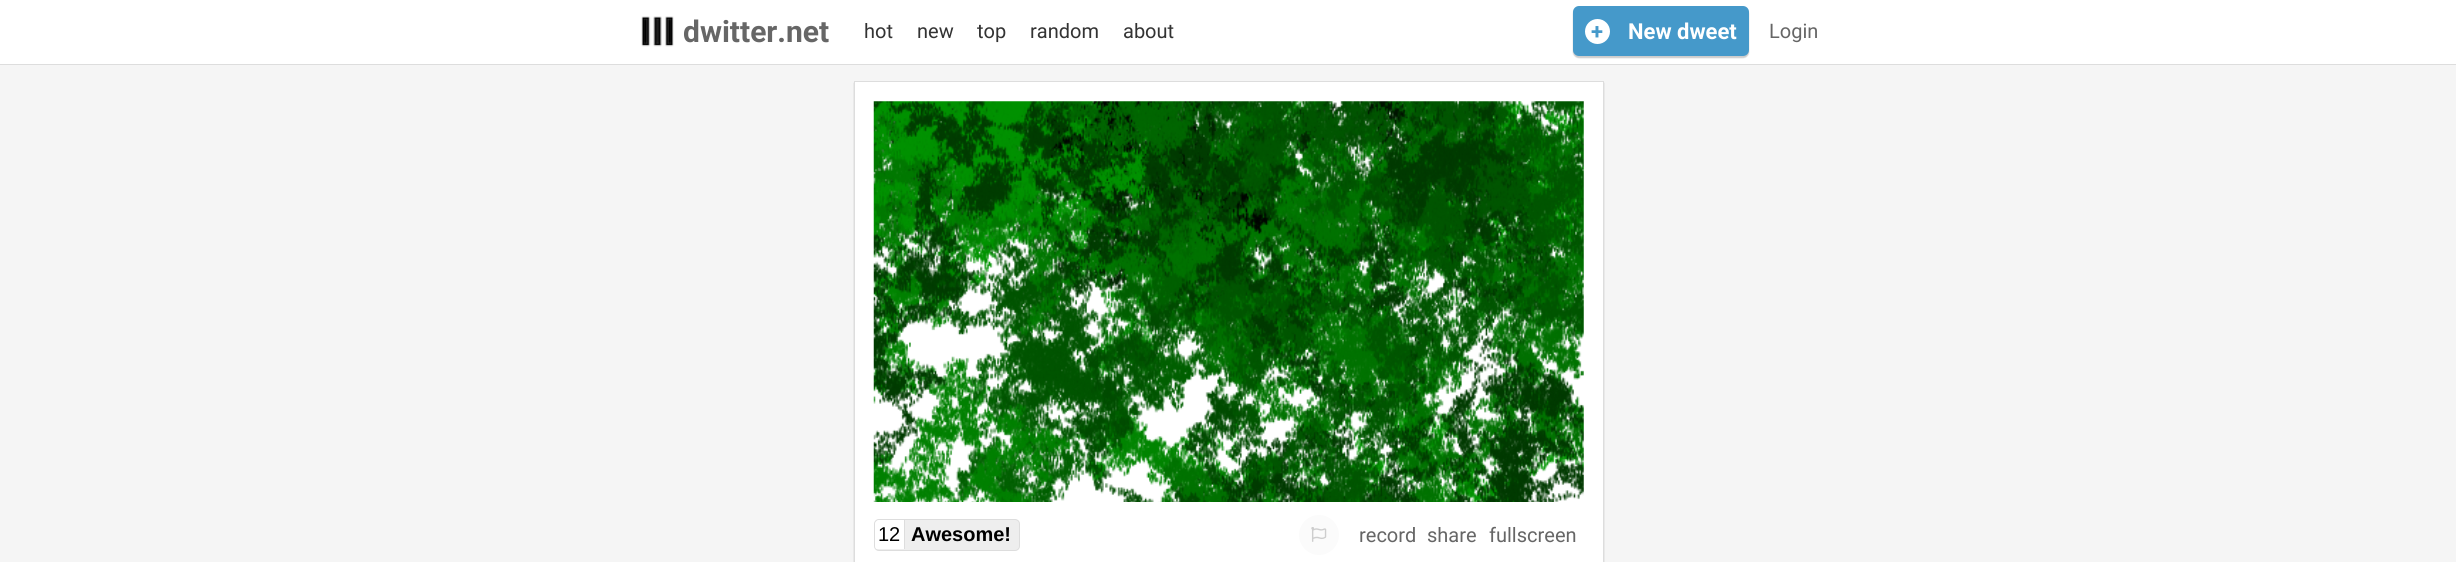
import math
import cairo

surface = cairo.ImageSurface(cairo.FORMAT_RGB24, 2456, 562)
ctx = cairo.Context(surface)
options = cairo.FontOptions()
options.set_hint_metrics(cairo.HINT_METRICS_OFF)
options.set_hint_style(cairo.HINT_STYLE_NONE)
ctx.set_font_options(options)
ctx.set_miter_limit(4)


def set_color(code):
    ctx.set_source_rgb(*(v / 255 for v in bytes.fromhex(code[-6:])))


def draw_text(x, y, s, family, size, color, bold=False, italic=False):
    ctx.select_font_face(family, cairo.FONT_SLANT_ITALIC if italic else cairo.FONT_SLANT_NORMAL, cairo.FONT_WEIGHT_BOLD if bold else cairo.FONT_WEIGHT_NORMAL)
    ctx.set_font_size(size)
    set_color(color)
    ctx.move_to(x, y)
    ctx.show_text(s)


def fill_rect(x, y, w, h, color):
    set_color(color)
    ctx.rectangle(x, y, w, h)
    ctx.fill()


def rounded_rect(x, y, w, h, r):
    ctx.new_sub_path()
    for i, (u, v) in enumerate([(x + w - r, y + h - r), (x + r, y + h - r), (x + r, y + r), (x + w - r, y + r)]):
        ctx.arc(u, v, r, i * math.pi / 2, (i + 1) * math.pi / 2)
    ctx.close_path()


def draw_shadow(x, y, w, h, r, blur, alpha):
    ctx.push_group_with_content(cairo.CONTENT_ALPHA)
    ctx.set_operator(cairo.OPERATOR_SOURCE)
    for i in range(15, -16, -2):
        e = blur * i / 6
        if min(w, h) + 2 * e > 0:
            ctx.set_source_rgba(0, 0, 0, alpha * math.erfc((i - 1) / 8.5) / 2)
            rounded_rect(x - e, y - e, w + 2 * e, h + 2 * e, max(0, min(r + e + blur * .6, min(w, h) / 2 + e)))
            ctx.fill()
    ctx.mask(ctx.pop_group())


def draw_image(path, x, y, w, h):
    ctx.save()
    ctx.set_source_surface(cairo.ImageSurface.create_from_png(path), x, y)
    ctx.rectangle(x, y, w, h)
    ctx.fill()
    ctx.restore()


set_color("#f5f5f5")
ctx.paint()
fill_rect(0, 0, 2456, 64, "#ffffff")
fill_rect(0, 64, 2456, 1, "#dddddd")
draw_image("assets/img1.png", 641, 16, 33, 31)
draw_text(683, 42, "dwitter.net", "Roboto", 30, "#666666", bold=True)
draw_text(864, 38, "hot", "Roboto", 20, "#333333")
draw_text(917, 38, "new", "Roboto", 20, "#333333")
draw_text(977, 38, "top", "Roboto", 20, "#333333")
draw_text(1030, 38, "random", "Roboto", 20, "#333333")
draw_text(1123, 38, "about", "Roboto", 20, "#333333")
set_color("#000000")
draw_shadow(1573, 8, 176, 50, 6, 0.5, 0.2)
set_color("#4599ca")
rounded_rect(1573, 6, 176, 50, 6)
ctx.fill()
set_color("#ffffff")
ctx.arc(1597.5, 31.5, 12.5, 0, 2 * math.pi)
ctx.fill()
draw_text(1591, 39, "+", "Roboto", 22, "#4599ca", bold=True)
draw_text(1628, 39, "New dweet", "Roboto", 22, "#ffffff", bold=True)
draw_text(1769, 38, "Login", "Roboto", 20, "#666666")
set_color("#000000")
draw_shadow(854, 83, 750, 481, 0, 0.5, 0.2)
set_color("#ffffff")
ctx.rectangle(854.5, 81.5, 749, 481)
ctx.fill_preserve()
set_color("#dddddd")
ctx.set_line_width(1)
ctx.stroke()
draw_image("assets/img2.png", 873, 101, 711, 401)
set_color("#eeeeee")
rounded_rect(874.5, 519.5, 145, 31, 4.5)
ctx.fill_preserve()
set_color("#dddddd")
ctx.stroke()
ctx.save()
rounded_rect(875, 520, 144, 30, 4)
ctx.clip()
set_color("#ffffff")
ctx.new_path()
ctx.move_to(879, 520)
ctx.line_to(905, 520)
ctx.line_to(905, 549)
ctx.line_to(875, 549)
ctx.line_to(875, 524)
ctx.curve_to(875, 522, 877, 520, 879, 520)
ctx.close_path()
ctx.fill()
ctx.restore()
draw_text(878, 541, "12", "Liberation Sans", 20, "#000000")
fill_rect(904, 520, 1, 29, "#dddddd")
draw_text(911, 541, "Awesome!", "Liberation Sans", 20, "#000000", bold=True)
set_color("#fbfbfb")
ctx.new_path()
ctx.arc(1319, 535, 20, 0, 2 * math.pi)
ctx.fill()
draw_image("assets/img3.png", 1311, 527, 16, 15)
draw_text(1359, 542, "record", "Roboto", 20, "#666666")
draw_text(1427, 542, "share", "Roboto", 20, "#666666")
draw_text(1489, 542, "fullscreen", "Roboto", 20, "#666666")
surface.write_to_png("output.png")
